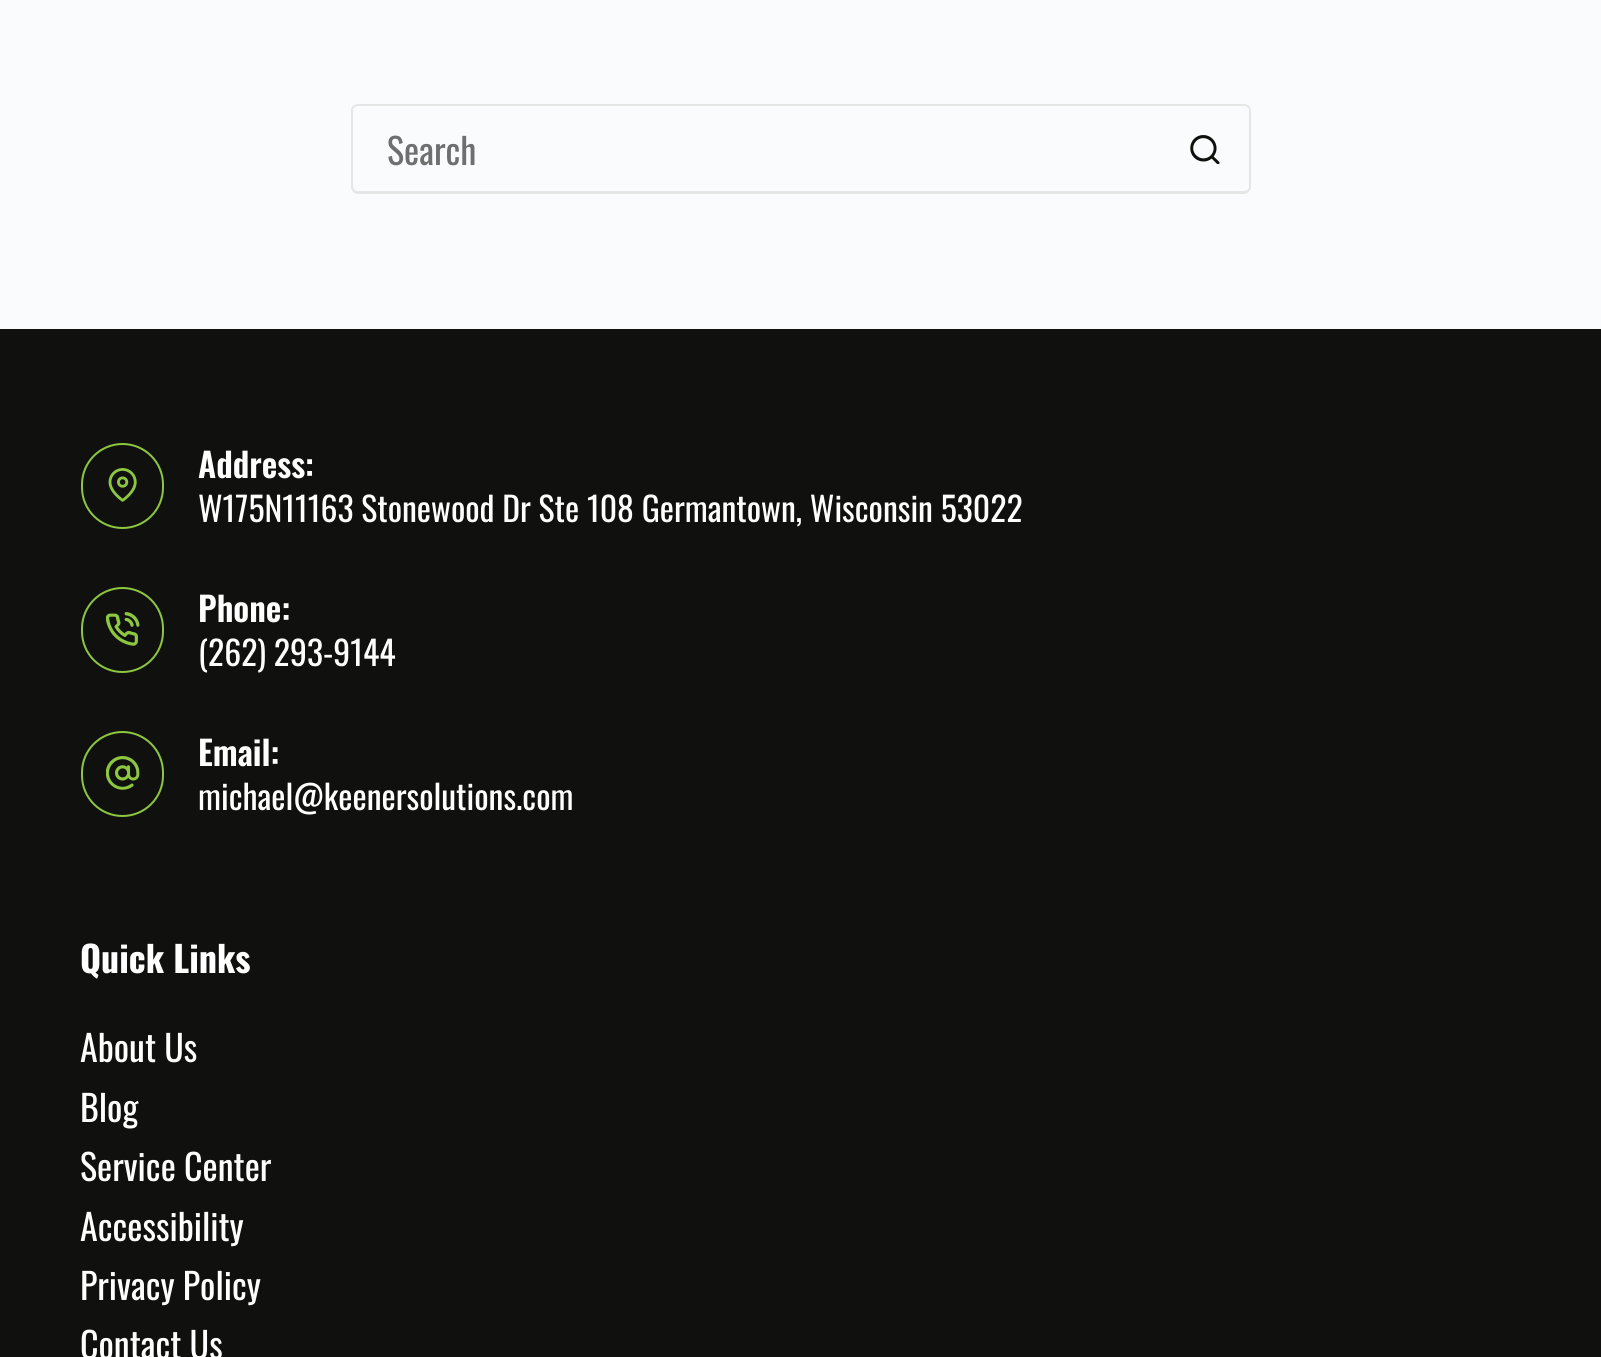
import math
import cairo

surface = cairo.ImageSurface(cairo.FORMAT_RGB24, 1601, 1357)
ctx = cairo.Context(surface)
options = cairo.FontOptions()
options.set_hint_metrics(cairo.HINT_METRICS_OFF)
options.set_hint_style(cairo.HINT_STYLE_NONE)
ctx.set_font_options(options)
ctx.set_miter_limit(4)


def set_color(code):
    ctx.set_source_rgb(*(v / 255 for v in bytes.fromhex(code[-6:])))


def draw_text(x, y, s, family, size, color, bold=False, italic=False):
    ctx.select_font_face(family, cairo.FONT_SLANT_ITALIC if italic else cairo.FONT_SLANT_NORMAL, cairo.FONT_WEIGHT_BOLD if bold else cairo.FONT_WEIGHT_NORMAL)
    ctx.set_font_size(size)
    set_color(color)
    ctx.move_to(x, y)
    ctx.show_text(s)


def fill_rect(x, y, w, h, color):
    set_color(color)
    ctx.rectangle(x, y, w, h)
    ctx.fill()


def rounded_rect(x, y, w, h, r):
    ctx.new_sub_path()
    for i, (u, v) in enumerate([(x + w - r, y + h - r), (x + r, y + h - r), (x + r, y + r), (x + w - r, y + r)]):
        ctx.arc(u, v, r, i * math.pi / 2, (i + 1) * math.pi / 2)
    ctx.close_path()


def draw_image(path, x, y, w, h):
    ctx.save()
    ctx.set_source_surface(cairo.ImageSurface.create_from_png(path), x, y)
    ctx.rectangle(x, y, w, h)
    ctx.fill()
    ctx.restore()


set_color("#fafbfc")
ctx.paint()
set_color("#e6e6e6")
ctx.set_fill_rule(cairo.FILL_RULE_EVEN_ODD)
ctx.new_path()
ctx.move_to(358, 104)
ctx.line_to(1161, 104)
ctx.line_to(1161, 194)
ctx.line_to(358, 194)
ctx.curve_to(354, 194, 351, 190, 351, 187)
ctx.line_to(351, 110)
ctx.curve_to(351, 107, 354, 104, 358, 104)
ctx.close_path()
ctx.move_to(358, 106)
ctx.line_to(1161, 106)
ctx.line_to(1161, 191)
ctx.line_to(358, 191)
ctx.curve_to(355, 191, 353, 189, 353, 187)
ctx.line_to(353, 110)
ctx.curve_to(353, 108, 355, 106, 358, 106)
ctx.close_path()
ctx.fill()
draw_text(387, 165, "Search", "Oswald", 36, "#6e6f6e")
set_color("#e6e6e6")
ctx.new_path()
ctx.move_to(1161, 104)
ctx.line_to(1244, 104)
ctx.curve_to(1248, 104, 1251, 107, 1251, 110)
ctx.line_to(1251, 187)
ctx.curve_to(1251, 190, 1248, 194, 1244, 194)
ctx.line_to(1161, 194)
ctx.close_path()
ctx.move_to(1161, 106)
ctx.line_to(1244, 106)
ctx.curve_to(1247, 106, 1249, 108, 1249, 110)
ctx.line_to(1249, 187)
ctx.curve_to(1249, 189, 1247, 191, 1244, 191)
ctx.line_to(1161, 191)
ctx.close_path()
ctx.fill()
draw_image("assets/img1.png", 1190, 135, 30, 29)
fill_rect(0, 329, 1601, 1028, "#10110f")
rounded_rect(82, 444, 81, 84, 40.5)
set_color("#8dc63f")
ctx.stroke()
draw_image("assets/img2.png", 108, 468, 29, 34)
draw_text(198, 478, "Address:", "Oswald SemiBold", 33.75, "#ffffff")
draw_text(198, 522, "W175N11163 Stonewood Dr Ste 108 Germantown, Wisconsin 53022", "Oswald", 33.75, "#ffffff")
rounded_rect(82, 588, 81, 84, 40.5)
set_color("#8dc63f")
ctx.stroke()
draw_image("assets/img3.png", 106, 612, 34, 34)
draw_text(198, 622, "Phone:", "Oswald SemiBold", 33.75, "#ffffff")
draw_text(198, 666, "(262) 293-9144", "Oswald", 33.75, "#ffffff")
rounded_rect(82, 732, 81, 84, 40.5)
set_color("#8dc63f")
ctx.stroke()
draw_image("assets/img4.png", 106, 756, 34, 34)
draw_text(198, 766, "Email:", "Oswald SemiBold", 33.75, "#ffffff")
draw_text(198, 810, "michael@keenersolutions.com", "Oswald", 33.75, "#ffffff")
draw_text(80, 973, "Quick Links", "Oswald", 36, "#ffffff", bold=True)
draw_text(80, 1062, "About Us", "Oswald", 36, "#ffffff")
draw_text(80, 1122, "Blog", "Oswald", 36, "#ffffff")
draw_text(80, 1181, "Service Center", "Oswald", 36, "#ffffff")
draw_text(80, 1241, "Accessibility", "Oswald", 36, "#ffffff")
draw_text(80, 1300, "Privacy Policy", "Oswald", 36, "#ffffff")
draw_text(80, 1359, "Contact Us", "Oswald", 36, "#ffffff")
surface.write_to_png("output.png")
